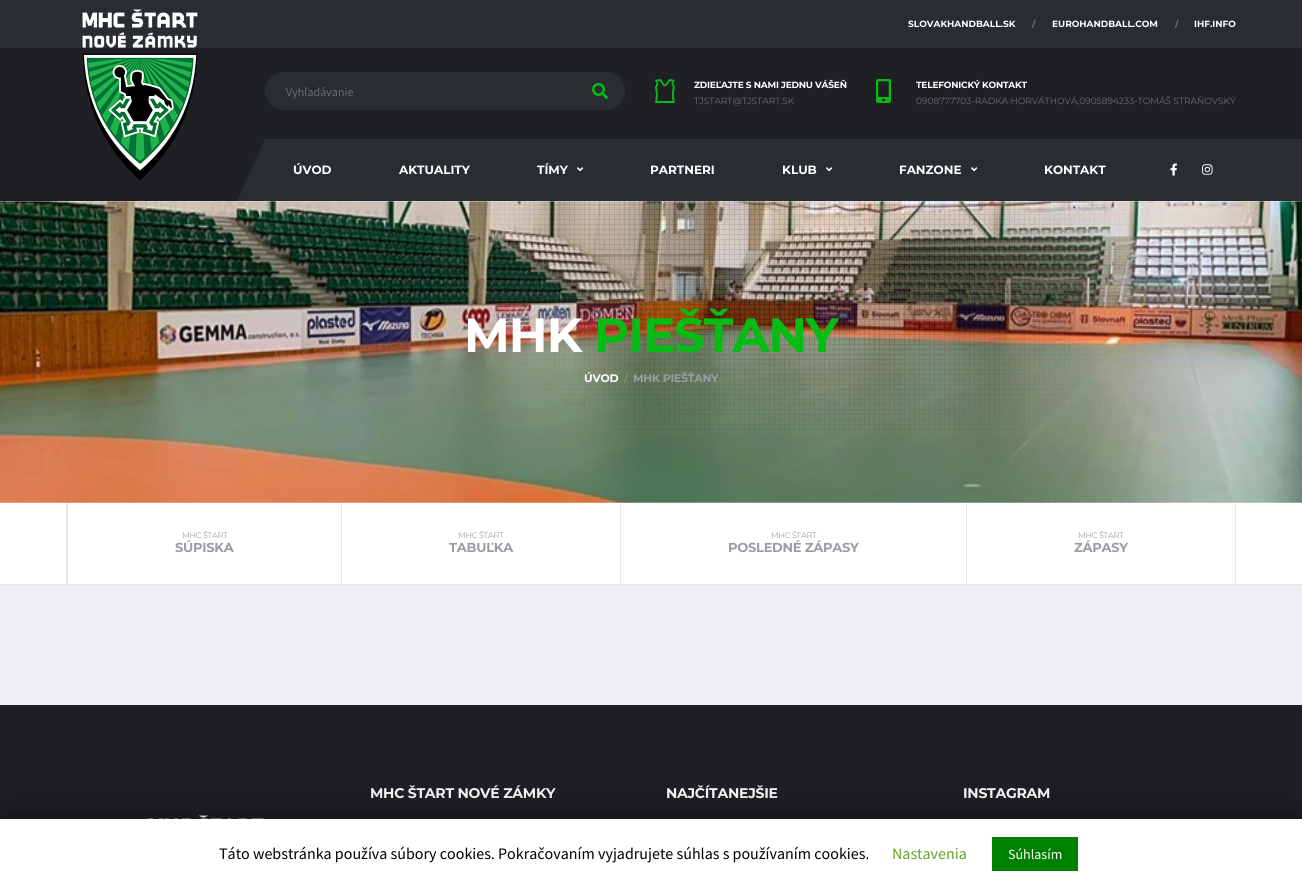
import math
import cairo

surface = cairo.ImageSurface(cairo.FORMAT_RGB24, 1302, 889)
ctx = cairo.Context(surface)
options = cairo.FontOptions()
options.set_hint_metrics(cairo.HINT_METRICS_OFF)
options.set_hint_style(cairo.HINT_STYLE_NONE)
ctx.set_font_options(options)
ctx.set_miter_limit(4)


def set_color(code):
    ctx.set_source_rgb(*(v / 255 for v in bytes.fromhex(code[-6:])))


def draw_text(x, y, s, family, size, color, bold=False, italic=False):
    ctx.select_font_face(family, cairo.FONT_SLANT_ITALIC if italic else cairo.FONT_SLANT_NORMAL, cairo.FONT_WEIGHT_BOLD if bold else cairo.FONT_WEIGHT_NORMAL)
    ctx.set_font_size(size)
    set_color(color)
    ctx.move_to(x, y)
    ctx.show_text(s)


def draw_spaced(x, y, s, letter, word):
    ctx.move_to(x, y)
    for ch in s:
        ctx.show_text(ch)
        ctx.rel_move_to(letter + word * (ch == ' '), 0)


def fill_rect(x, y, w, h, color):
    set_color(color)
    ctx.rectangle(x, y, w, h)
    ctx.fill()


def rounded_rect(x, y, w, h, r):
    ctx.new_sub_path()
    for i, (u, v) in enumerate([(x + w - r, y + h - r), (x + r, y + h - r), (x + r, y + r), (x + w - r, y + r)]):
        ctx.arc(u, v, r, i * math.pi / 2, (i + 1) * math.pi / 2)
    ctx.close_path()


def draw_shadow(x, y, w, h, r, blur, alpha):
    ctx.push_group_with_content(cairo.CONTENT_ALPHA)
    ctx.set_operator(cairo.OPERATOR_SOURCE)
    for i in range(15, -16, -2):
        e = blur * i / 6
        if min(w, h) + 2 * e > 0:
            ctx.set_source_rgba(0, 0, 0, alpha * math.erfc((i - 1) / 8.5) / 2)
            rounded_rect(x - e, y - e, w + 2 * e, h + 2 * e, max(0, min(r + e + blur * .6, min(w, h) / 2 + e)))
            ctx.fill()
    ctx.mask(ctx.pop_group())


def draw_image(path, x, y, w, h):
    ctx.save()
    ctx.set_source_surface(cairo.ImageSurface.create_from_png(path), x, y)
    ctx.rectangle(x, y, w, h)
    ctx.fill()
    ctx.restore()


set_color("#edeff4")
ctx.paint()
fill_rect(0, 48, 1302, 153, "#1e2024")
fill_rect(0, 0, 1302, 48, "#292c31")
draw_text(908, 27, "SLOVAKHANDBALL.SK", "Montserrat", 9, "#ffffff", bold=True)
draw_text(1032, 27, "/", "Montserrat", 9, "#6b6d70", bold=True)
draw_text(1052, 27, "EUROHANDBALL.COM", "Montserrat", 9, "#ffffff", bold=True)
draw_text(1175, 27, "/", "Montserrat", 9, "#6b6d70", bold=True)
draw_text(1194, 27, "IHF.INFO", "Montserrat", 9, "#ffffff", bold=True)
set_color("#292c31")
rounded_rect(265.5, 72.5, 359, 37, 18.5)
ctx.fill_preserve()
ctx.set_line_width(1)
ctx.stroke()
draw_text(286, 96, "Vyhľadávanie", "Source Sans Pro", 12, "#6b6d70")
draw_image("assets/img1.png", 592, 83, 16, 16)
draw_image("assets/img2.png", 654, 79, 21, 24)
ctx.select_font_face("Montserrat", cairo.FONT_SLANT_NORMAL, cairo.FONT_WEIGHT_BOLD)
ctx.set_font_size(9)
set_color("#ffffff")
draw_spaced(694, 88, "ZDIEĽAJTE S NAMI JEDNU VÁŠEŇ", -0.2, 0)
draw_text(694, 104, "TJSTART@TJSTART.SK", "Montserrat", 9, "#6b6d70")
draw_image("assets/img3.png", 876, 79, 15, 24)
ctx.select_font_face("Montserrat", cairo.FONT_SLANT_NORMAL, cairo.FONT_WEIGHT_BOLD)
set_color("#ffffff")
draw_spaced(916, 88, "TELEFONICKÝ KONTAKT", -0.2, 0)
draw_text(916, 104, "0908777703-RADKA HORVÁTHOVÁ,0905894233-TOMÁŠ STRAŇOVSKÝ", "Montserrat", 9, "#6b6d70")
fill_rect(237, 139, 1065, 62, "#292c31")
set_color("#1e2024")
ctx.new_path()
ctx.move_to(55, 139)
ctx.line_to(265, 139)
ctx.line_to(237, 201)
ctx.line_to(27, 201)
ctx.close_path()
ctx.fill()
draw_image("assets/img4.png", 82, 9, 116, 171)
draw_text(293, 174, "ÚVOD", "Montserrat", 12, "#ffffff", bold=True)
draw_text(399, 174, "AKTUALITY", "Montserrat", 12, "#ffffff", bold=True)
draw_text(537, 174, "TÍMY", "Montserrat", 12, "#ffffff", bold=True)
draw_image("assets/img5.png", 577, 167, 7, 5)
draw_text(650, 174, "PARTNERI", "Montserrat", 12, "#ffffff", bold=True)
draw_text(782, 174, "KLUB", "Montserrat", 12, "#ffffff", bold=True)
draw_image("assets/img5.png", 826, 167, 7, 5)
draw_text(899, 174, "FANZONE", "Montserrat", 12, "#ffffff", bold=True)
draw_image("assets/img5.png", 971, 167, 7, 5)
draw_text(1044, 174, "KONTAKT", "Montserrat", 12, "#ffffff", bold=True)
draw_image("assets/img6.png", 1170, 163, 7, 13)
draw_image("assets/img7.png", 1202, 164, 11, 11)
draw_image("assets/img8.png", 0, 201, 1302, 302)
draw_image("assets/img9.png", 440, 201, 692, 233)
ctx.set_font_size(48)
draw_spaced(464, 352, "MHK", -1, 0)
set_color("#05bc14")
draw_spaced(594, 352, "PIEŠŤANY", -1, 0)
ctx.set_font_size(11)
set_color("#ffffff")
draw_spaced(584, 382, "ÚVOD", -0.25, 0)
ctx.select_font_face("Montserrat")
set_color("#9a9da2")
draw_spaced(624, 382, "/", -0.25, 0)
ctx.select_font_face("Montserrat", cairo.FONT_SLANT_NORMAL, cairo.FONT_WEIGHT_BOLD)
draw_spaced(633, 382, "MHK PIEŠŤANY", -0.25, 0)
fill_rect(0, 503, 1302, 81, "#ffffff")
fill_rect(0, 584, 1302, 1, "#e4e7ed")
fill_rect(1235, 503, 1, 81, "#e4e7ed")
fill_rect(66, 503, 2, 81, "#e4e7ed")
ctx.select_font_face("Montserrat")
ctx.set_font_size(8)
set_color("#9a9da2")
draw_spaced(182, 538, "MHC ŠTART", -0.25, 0)
ctx.select_font_face("Montserrat", cairo.FONT_SLANT_NORMAL, cairo.FONT_WEIGHT_BOLD)
ctx.set_font_size(13)
draw_spaced(175, 552, "SÚPISKA", -0.25, 0)
fill_rect(341, 503, 1, 81, "#e4e7ed")
ctx.select_font_face("Montserrat")
ctx.set_font_size(8)
set_color("#9a9da2")
draw_spaced(458, 538, "MHC ŠTART", -0.25, 0)
ctx.select_font_face("Montserrat", cairo.FONT_SLANT_NORMAL, cairo.FONT_WEIGHT_BOLD)
ctx.set_font_size(13)
draw_spaced(449, 552, "TABUĽKA", -0.25, 0)
fill_rect(620, 503, 1, 81, "#e4e7ed")
ctx.select_font_face("Montserrat")
ctx.set_font_size(8)
set_color("#9a9da2")
draw_spaced(771, 538, "MHC ŠTART", -0.25, 0)
ctx.select_font_face("Montserrat", cairo.FONT_SLANT_NORMAL, cairo.FONT_WEIGHT_BOLD)
ctx.set_font_size(13)
draw_spaced(728, 552, "POSLEDNÉ ZÁPASY", -0.25, 0)
fill_rect(966, 503, 1, 81, "#e4e7ed")
ctx.select_font_face("Montserrat")
ctx.set_font_size(8)
set_color("#9a9da2")
draw_spaced(1078, 538, "MHC ŠTART", -0.25, 0)
ctx.select_font_face("Montserrat", cairo.FONT_SLANT_NORMAL, cairo.FONT_WEIGHT_BOLD)
ctx.set_font_size(13)
draw_spaced(1074, 552, "ZÁPASY", -0.25, 0)
fill_rect(0, 705, 1302, 114, "#1e2024")
ctx.set_font_size(14)
set_color("#ffffff")
draw_spaced(370, 798, "MHC ŠTART NOVÉ ZÁMKY", -0.25, 0)
draw_spaced(666, 798, "NAJČÍTANEJŠIE", -0.25, 0)
draw_spaced(963, 798, "INSTAGRAM", -0.25, 0)
draw_image("assets/img10.png", 148, 815, 116, 4)
set_color("#000000")
draw_shadow(0, 824, 1302, 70, 0, 25, 0.5)
fill_rect(0, 819, 1302, 70, "#ffffff")
draw_text(219, 859, "Táto webstránka používa súbory cookies. Pokračovaním vyjadrujete súhlas s používaním cookies.", "Source Sans Pro", 16, "#000000")
draw_text(892, 859, "Nastavenia", "Source Sans Pro", 16, "#62a329")
fill_rect(992, 837, 86, 34, "#008000")
draw_text(1008, 859, "Súhlasím", "Source Sans Pro", 14, "#ffffff")
surface.write_to_png("output.png")
